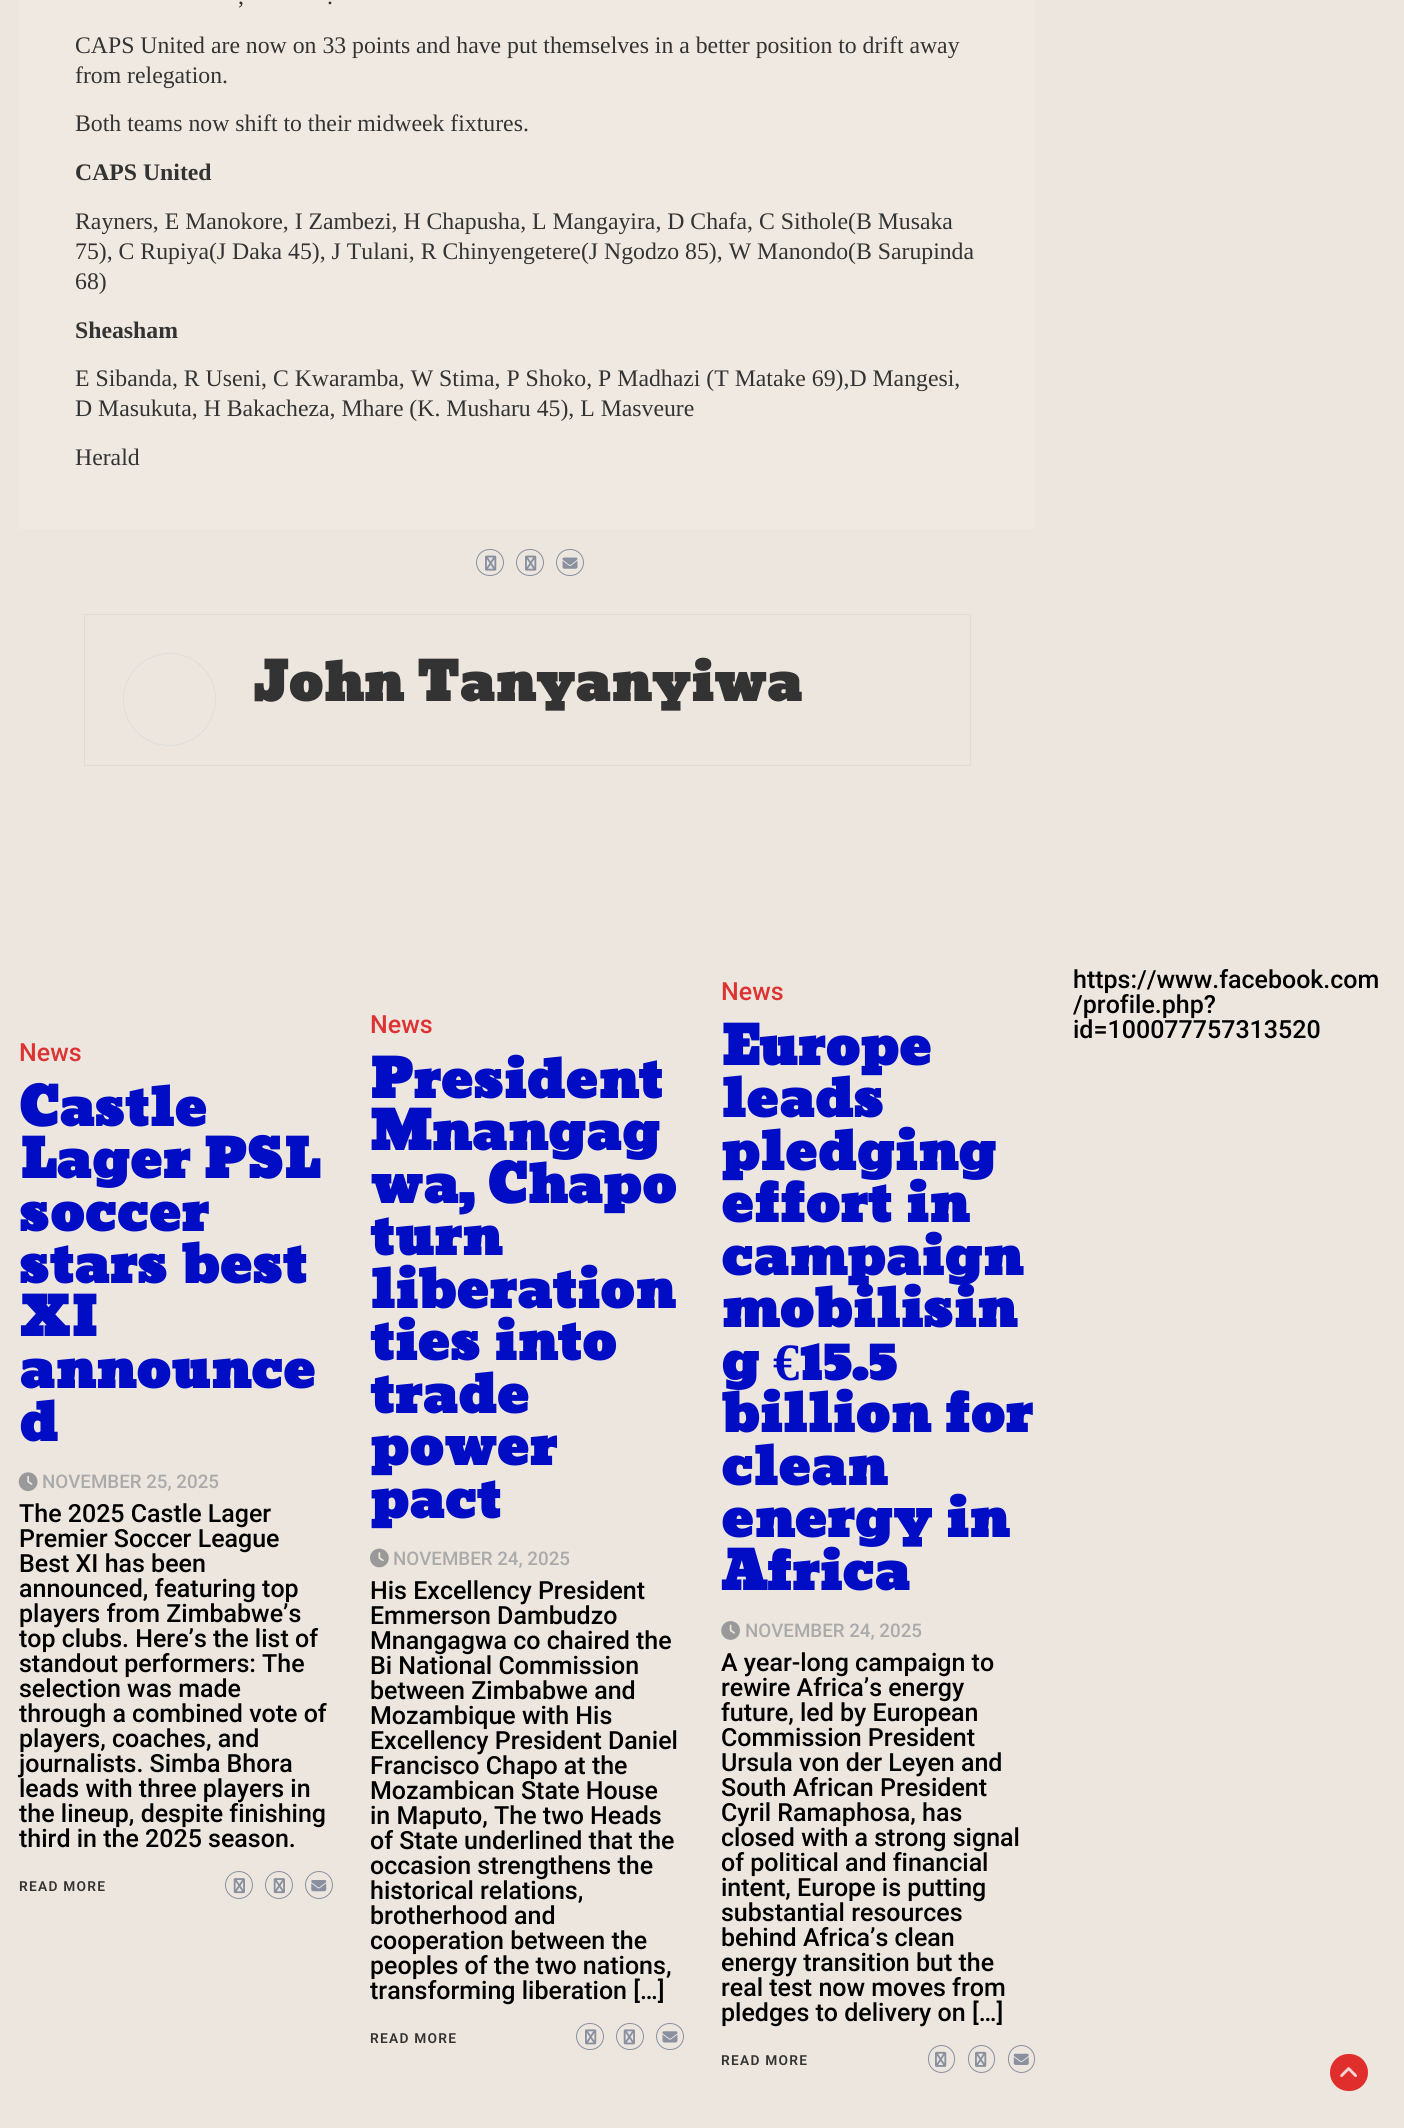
import math
import cairo

surface = cairo.ImageSurface(cairo.FORMAT_RGB24, 1404, 2128)
ctx = cairo.Context(surface)
options = cairo.FontOptions()
options.set_hint_metrics(cairo.HINT_METRICS_OFF)
options.set_hint_style(cairo.HINT_STYLE_NONE)
ctx.set_font_options(options)
ctx.set_miter_limit(4)


def set_color(code):
    ctx.set_source_rgb(*(v / 255 for v in bytes.fromhex(code[-6:])))


def draw_text(x, y, s, family, size, color, bold=False, italic=False):
    ctx.select_font_face(family, cairo.FONT_SLANT_ITALIC if italic else cairo.FONT_SLANT_NORMAL, cairo.FONT_WEIGHT_BOLD if bold else cairo.FONT_WEIGHT_NORMAL)
    ctx.set_font_size(size)
    set_color(color)
    ctx.move_to(x, y)
    ctx.show_text(s)


def draw_spaced(x, y, s, letter, word):
    ctx.move_to(x, y)
    for ch in s:
        ctx.show_text(ch)
        ctx.rel_move_to(letter + word * (ch == ' '), 0)


def fill_rect(x, y, w, h, color):
    set_color(color)
    ctx.rectangle(x, y, w, h)
    ctx.fill()


def rounded_rect(x, y, w, h, r):
    ctx.new_sub_path()
    for i, (u, v) in enumerate([(x + w - r, y + h - r), (x + r, y + h - r), (x + r, y + r), (x + w - r, y + r)]):
        ctx.arc(u, v, r, i * math.pi / 2, (i + 1) * math.pi / 2)
    ctx.close_path()


def draw_image(path, x, y, w, h):
    ctx.save()
    ctx.set_source_surface(cairo.ImageSurface.create_from_png(path), x, y)
    ctx.rectangle(x, y, w, h)
    ctx.fill()
    ctx.restore()


set_color("#ede6de")
ctx.paint()
fill_rect(19, 0, 1016, 529, "#efe9e1")
draw_text(238, 4, ",", "Liberation Serif", 23.75, "#333333")
draw_text(327, 4, ".", "Liberation Serif", 23.75, "#333333")
draw_text(75, 53, "CAPS United are now on 33 points and have put themselves in a better position to drift away", "Liberation Serif", 23.75, "#333333")
draw_text(75, 83, "from relegation.", "Liberation Serif", 23.75, "#333333")
draw_text(75, 131, "Both teams now shift to their midweek fixtures.", "Liberation Serif", 23.75, "#333333")
draw_text(75, 180, "CAPS United", "Liberation Serif", 23.75, "#333333", bold=True)
draw_text(75, 229, "Rayners, E Manokore, I Zambezi, H Chapusha, L Mangayira, D Chafa, C Sithole(B Musaka", "Liberation Serif", 23.75, "#333333")
draw_text(75, 259, "75), C Rupiya(J Daka 45), J Tulani, R Chinyengetere(J Ngodzo 85), W Manondo(B Sarupinda", "Liberation Serif", 23.75, "#333333")
draw_text(75, 289, "68)", "Liberation Serif", 23.75, "#333333")
draw_text(75, 338, "Sheasham", "Liberation Serif", 23.75, "#333333", bold=True)
draw_text(75, 386, "E Sibanda, R Useni, C Kwaramba, W Stima, P Shoko, P Madhazi (T Matake 69),D Mangesi,", "Liberation Serif", 23.75, "#333333")
draw_text(75, 416, "D Masukuta, H Bakacheza, Mhare (K. Musharu 45), L Masveure", "Liberation Serif", 23.75, "#333333")
draw_text(75, 465, "Herald", "Liberation Serif", 23.75, "#333333")
rounded_rect(476.5, 549.5, 27, 26, 13)
set_color("#8990a0")
ctx.set_line_width(1)
ctx.stroke()
draw_image("assets/img1.png", 485, 555, 12, 16)
rounded_rect(516.5, 549.5, 27, 26, 13)
ctx.stroke()
draw_image("assets/img1.png", 525, 555, 12, 16)
rounded_rect(556.5, 549.5, 27, 26, 13)
ctx.stroke()
draw_image("assets/img2.png", 562, 557, 16, 12)
ctx.rectangle(84.5, 614.5, 886, 151)
set_color("#e1dbd3")
ctx.stroke()
ctx.arc(169.5, 699.5, 46, 0, 2 * math.pi)
set_color("#dddddd")
ctx.stroke()
draw_text(253, 701, "John Tanyanyiwa", "Moul", 52.5, "#333333", bold=True)
draw_text(19, 1061, "News", "Roboto Medium", 25, "#dd3333")
draw_text(19, 1126, "Castle", "Moul", 52.5, "#000dc4", bold=True)
draw_text(19, 1178, "Lager PSL", "Moul", 52.5, "#000dc4", bold=True)
draw_text(19, 1231, "soccer", "Moul", 52.5, "#000dc4", bold=True)
draw_text(19, 1283, "stars best", "Moul", 52.5, "#000dc4", bold=True)
draw_text(19, 1336, "XI", "Moul", 52.5, "#000dc4", bold=True)
draw_text(19, 1388, "announce", "Moul", 52.5, "#000dc4", bold=True)
draw_text(19, 1441, "d", "Moul", 52.5, "#000dc4", bold=True)
draw_image("assets/img3.png", 18, 1472, 20, 20)
draw_text(42, 1488, "NOVEMBER 25, 2025", "Roboto Medium", 18.75, "#aaaaaa")
draw_text(19, 1522, "The 2025 Castle Lager", "Roboto Medium", 25, "#000000")
draw_text(19, 1547, "Premier Soccer League", "Roboto Medium", 25, "#000000")
draw_text(19, 1572, "Best XI has been", "Roboto Medium", 25, "#000000")
draw_text(19, 1597, "announced, featuring top", "Roboto Medium", 25, "#000000")
draw_text(19, 1622, "players from Zimbabwe’s", "Roboto Medium", 25, "#000000")
draw_text(19, 1647, "top clubs. Here’s the list of", "Roboto Medium", 25, "#000000")
draw_text(19, 1672, "standout performers: The", "Roboto Medium", 25, "#000000")
draw_text(19, 1697, "selection was made", "Roboto Medium", 25, "#000000")
draw_text(19, 1722, "through a combined vote of", "Roboto Medium", 25, "#000000")
draw_text(19, 1747, "players, coaches, and", "Roboto Medium", 25, "#000000")
draw_text(19, 1772, "journalists. Simba Bhora", "Roboto Medium", 25, "#000000")
draw_text(19, 1797, "leads with three players in", "Roboto Medium", 25, "#000000")
draw_text(19, 1822, "the lineup, despite finishing", "Roboto Medium", 25, "#000000")
draw_text(19, 1847, "third in the 2025 season.", "Roboto Medium", 25, "#000000")
ctx.select_font_face("Roboto SemiBold")
ctx.set_font_size(13.75)
set_color("#333333")
draw_spaced(19, 1891, "READ MORE", 1.25, 0)
ctx.new_path()
ctx.arc(239, 1885, 13.5, 0, 2 * math.pi)
set_color("#8990a0")
ctx.stroke()
draw_image("assets/img4.png", 233, 1878, 12, 16)
ctx.arc(279, 1885, 13.5, 0, 2 * math.pi)
ctx.stroke()
draw_image("assets/img4.png", 273, 1878, 12, 16)
ctx.arc(319, 1885, 13.5, 0, 2 * math.pi)
ctx.stroke()
draw_image("assets/img5.png", 311, 1880, 16, 12)
draw_text(370, 1033, "News", "Roboto Medium", 25, "#dd3333")
draw_text(370, 1098, "President", "Moul", 52.5, "#000dc4", bold=True)
draw_text(370, 1150, "Mnangag", "Moul", 52.5, "#000dc4", bold=True)
draw_text(370, 1203, "wa, Chapo", "Moul", 52.5, "#000dc4", bold=True)
draw_text(370, 1255, "turn", "Moul", 52.5, "#000dc4", bold=True)
draw_text(370, 1308, "liberation", "Moul", 52.5, "#000dc4", bold=True)
draw_text(370, 1360, "ties into", "Moul", 52.5, "#000dc4", bold=True)
draw_text(370, 1413, "trade", "Moul", 52.5, "#000dc4", bold=True)
draw_text(370, 1465, "power", "Moul", 52.5, "#000dc4", bold=True)
draw_text(370, 1518, "pact", "Moul", 52.5, "#000dc4", bold=True)
draw_image("assets/img6.png", 370, 1548, 19, 20)
draw_text(393, 1565, "NOVEMBER 24, 2025", "Roboto Medium", 18.75, "#aaaaaa")
draw_text(370, 1599, "His Excellency President", "Roboto Medium", 25, "#000000")
draw_text(370, 1624, "Emmerson Dambudzo", "Roboto Medium", 25, "#000000")
draw_text(370, 1649, "Mnangagwa co chaired the", "Roboto Medium", 25, "#000000")
draw_text(370, 1674, "Bi National Commission", "Roboto Medium", 25, "#000000")
draw_text(370, 1699, "between Zimbabwe and", "Roboto Medium", 25, "#000000")
draw_text(370, 1724, "Mozambique with His", "Roboto Medium", 25, "#000000")
draw_text(370, 1749, "Excellency President Daniel", "Roboto Medium", 25, "#000000")
draw_text(370, 1774, "Francisco Chapo at the", "Roboto Medium", 25, "#000000")
draw_text(370, 1799, "Mozambican State House", "Roboto Medium", 25, "#000000")
draw_text(370, 1824, "in Maputo, The two Heads", "Roboto Medium", 25, "#000000")
draw_text(370, 1849, "of State underlined that the", "Roboto Medium", 25, "#000000")
draw_text(370, 1874, "occasion strengthens the", "Roboto Medium", 25, "#000000")
draw_text(370, 1899, "historical relations,", "Roboto Medium", 25, "#000000")
draw_text(370, 1924, "brotherhood and", "Roboto Medium", 25, "#000000")
draw_text(370, 1949, "cooperation between the", "Roboto Medium", 25, "#000000")
draw_text(370, 1974, "peoples of the two nations,", "Roboto Medium", 25, "#000000")
draw_text(370, 1999, "transforming liberation […]", "Roboto Medium", 25, "#000000")
ctx.select_font_face("Roboto SemiBold")
ctx.set_font_size(13.75)
set_color("#333333")
draw_spaced(370, 2043, "READ MORE", 1.25, 0)
rounded_rect(576.5, 2023.5, 27, 26, 13)
set_color("#8990a0")
ctx.stroke()
draw_image("assets/img7.png", 585, 2029, 12, 16)
rounded_rect(616.5, 2023.5, 27, 26, 13)
ctx.stroke()
draw_image("assets/img8.png", 623, 2029, 12, 16)
rounded_rect(656.5, 2023.5, 27, 26, 13)
ctx.stroke()
draw_image("assets/img9.png", 662, 2031, 16, 12)
draw_text(721, 1000, "News", "Roboto Medium", 25, "#dd3333")
draw_text(721, 1065, "Europe", "Moul", 52.5, "#000dc4", bold=True)
draw_text(721, 1117, "leads", "Moul", 52.5, "#000dc4", bold=True)
draw_text(721, 1170, "pledging", "Moul", 52.5, "#000dc4", bold=True)
draw_text(721, 1222, "effort in", "Moul", 52.5, "#000dc4", bold=True)
draw_text(721, 1275, "campaign", "Moul", 52.5, "#000dc4", bold=True)
draw_text(721, 1327, "mobilisin", "Moul", 52.5, "#000dc4", bold=True)
draw_text(721, 1380, "g", "Moul", 52.5, "#000dc4", bold=True)
draw_text(773, 1380, "€", "Liberation Serif", 52.5, "#000dc4", bold=True)
draw_text(799, 1380, "15.5", "Moul", 52.5, "#000dc4", bold=True)
draw_text(721, 1432, "billion for", "Moul", 52.5, "#000dc4", bold=True)
draw_text(721, 1485, "clean", "Moul", 52.5, "#000dc4", bold=True)
draw_text(721, 1537, "energy in", "Moul", 52.5, "#000dc4", bold=True)
draw_text(721, 1590, "Africa", "Moul", 52.5, "#000dc4", bold=True)
draw_image("assets/img10.png", 721, 1621, 19, 19)
draw_text(745, 1637, "NOVEMBER 24, 2025", "Roboto Medium", 18.75, "#aaaaaa")
draw_text(721, 1671, "A year-long campaign to", "Roboto Medium", 25, "#000000")
draw_text(721, 1696, "rewire Africa’s energy", "Roboto Medium", 25, "#000000")
draw_text(721, 1721, "future, led by European", "Roboto Medium", 25, "#000000")
draw_text(721, 1746, "Commission President", "Roboto Medium", 25, "#000000")
draw_text(721, 1771, "Ursula von der Leyen and", "Roboto Medium", 25, "#000000")
draw_text(721, 1796, "South African President", "Roboto Medium", 25, "#000000")
draw_text(721, 1821, "Cyril Ramaphosa, has", "Roboto Medium", 25, "#000000")
draw_text(721, 1846, "closed with a strong signal", "Roboto Medium", 25, "#000000")
draw_text(721, 1871, "of political and financial", "Roboto Medium", 25, "#000000")
draw_text(721, 1896, "intent, Europe is putting", "Roboto Medium", 25, "#000000")
draw_text(721, 1921, "substantial resources", "Roboto Medium", 25, "#000000")
draw_text(721, 1946, "behind Africa’s clean", "Roboto Medium", 25, "#000000")
draw_text(721, 1971, "energy transition but the", "Roboto Medium", 25, "#000000")
draw_text(721, 1996, "real test now moves from", "Roboto Medium", 25, "#000000")
draw_text(721, 2021, "pledges to delivery on […]", "Roboto Medium", 25, "#000000")
ctx.select_font_face("Roboto SemiBold")
ctx.set_font_size(13.75)
set_color("#333333")
draw_spaced(721, 2065, "READ MORE", 1.25, 0)
rounded_rect(928.5, 2045.5, 26, 27, 13)
set_color("#8990a0")
ctx.stroke()
draw_image("assets/img11.png", 935, 2051, 12, 16)
rounded_rect(968.5, 2045.5, 26, 27, 13)
ctx.stroke()
draw_image("assets/img11.png", 975, 2051, 12, 16)
rounded_rect(1008.5, 2045.5, 26, 27, 13)
ctx.stroke()
draw_image("assets/img12.png", 1013, 2053, 16, 12)
draw_text(1073, 988, "https://www.facebook.com", "Roboto Medium", 25, "#000000")
draw_text(1073, 1013, "/profile.php?", "Roboto Medium", 25, "#000000")
draw_text(1073, 1038, "id=100077757313520", "Roboto Medium", 25, "#000000")
set_color("#e02e2c")
rounded_rect(1330, 2054, 38, 37, 18.5)
ctx.fill()
draw_image("assets/img13.png", 1340, 2067, 17, 10)
surface.write_to_png("output.png")
